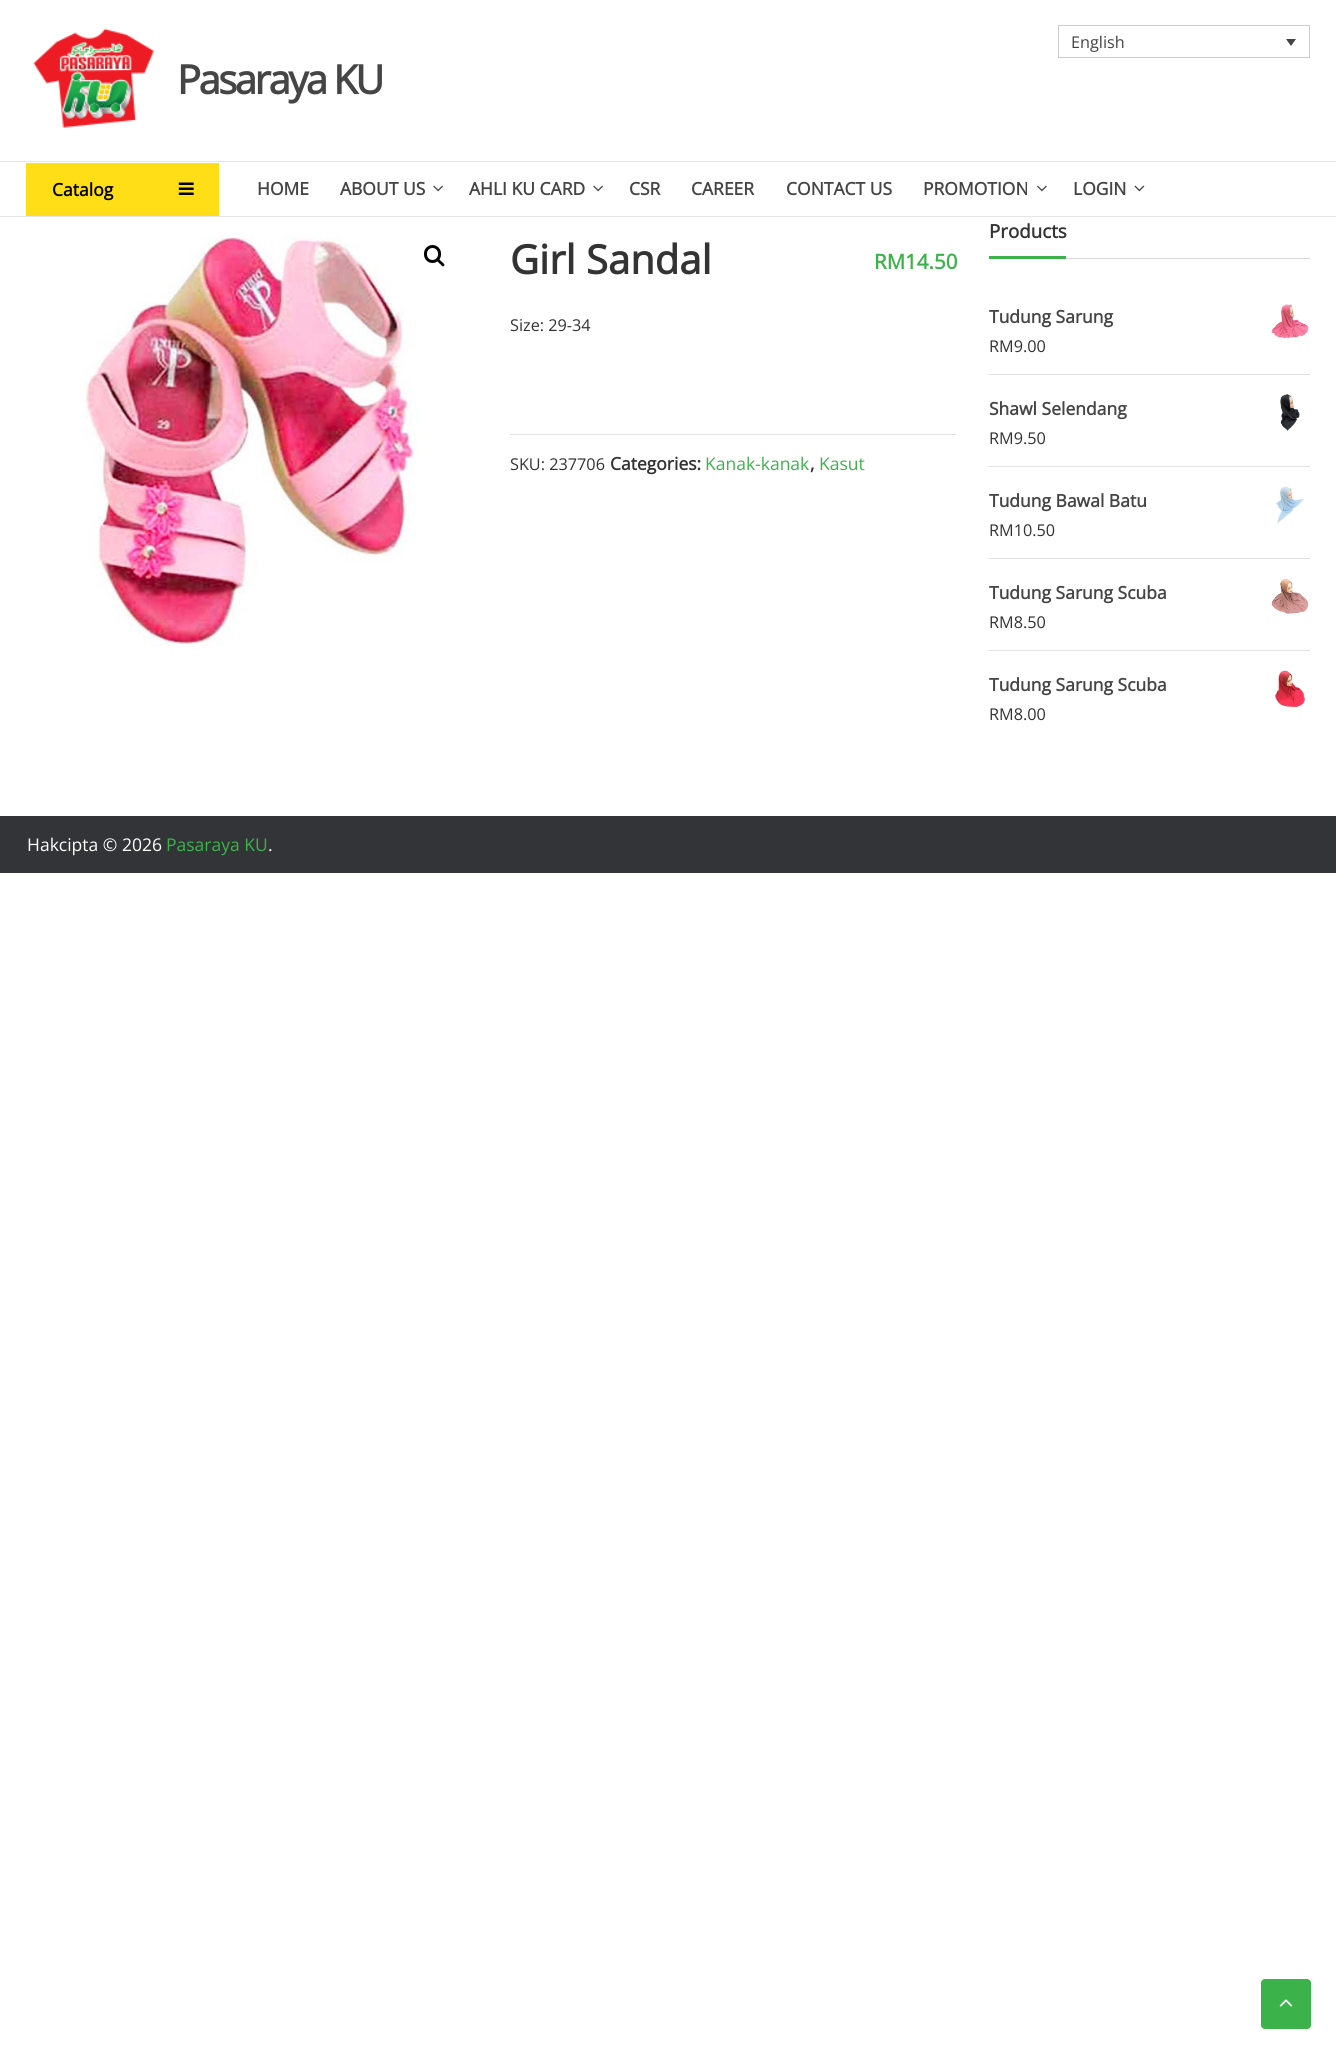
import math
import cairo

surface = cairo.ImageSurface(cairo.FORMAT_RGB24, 1336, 2066)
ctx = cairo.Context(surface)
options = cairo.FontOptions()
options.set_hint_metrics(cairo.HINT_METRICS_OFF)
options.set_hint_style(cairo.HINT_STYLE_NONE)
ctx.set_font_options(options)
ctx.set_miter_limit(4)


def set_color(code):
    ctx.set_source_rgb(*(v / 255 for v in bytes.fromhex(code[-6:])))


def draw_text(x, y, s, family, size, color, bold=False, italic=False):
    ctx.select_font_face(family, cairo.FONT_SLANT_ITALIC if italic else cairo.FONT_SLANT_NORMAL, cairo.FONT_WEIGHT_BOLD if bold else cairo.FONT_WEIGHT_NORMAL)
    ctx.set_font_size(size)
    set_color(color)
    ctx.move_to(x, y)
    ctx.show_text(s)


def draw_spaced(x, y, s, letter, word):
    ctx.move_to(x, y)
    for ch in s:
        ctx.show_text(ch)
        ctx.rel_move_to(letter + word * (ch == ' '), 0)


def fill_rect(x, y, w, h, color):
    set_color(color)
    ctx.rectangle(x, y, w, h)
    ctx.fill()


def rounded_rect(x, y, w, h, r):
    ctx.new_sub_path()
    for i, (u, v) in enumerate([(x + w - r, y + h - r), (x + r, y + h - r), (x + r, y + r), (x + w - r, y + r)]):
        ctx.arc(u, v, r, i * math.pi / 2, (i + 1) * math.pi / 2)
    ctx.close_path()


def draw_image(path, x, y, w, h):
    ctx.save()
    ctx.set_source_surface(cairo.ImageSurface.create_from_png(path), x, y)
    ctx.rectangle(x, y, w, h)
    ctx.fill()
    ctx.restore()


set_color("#ffffff")
ctx.paint()
ctx.rectangle(1058.5, 25.5, 251, 32)
set_color("#cdcdcd")
ctx.set_line_width(1)
ctx.stroke()
draw_text(1071, 48, "English", "Open Sans", 16.25, "#454545")
set_color("#444444")
ctx.new_path()
ctx.move_to(1286, 39)
ctx.line_to(1296, 39)
ctx.line_to(1291, 46)
ctx.close_path()
ctx.fill()
draw_image("assets/img1.png", 33, 28, 121, 100)
ctx.select_font_face("Open Sans", cairo.FONT_SLANT_NORMAL, cairo.FONT_WEIGHT_BOLD)
ctx.set_font_size(40)
set_color("#454545")
draw_spaced(177, 94, "Pasaraya KU", -2.5, 0)
fill_rect(0, 161, 1336, 1, "#e5e5e5")
fill_rect(0, 216, 1336, 1, "#e5e5e5")
fill_rect(26, 163, 193, 53, "#ffde17")
draw_text(52, 196, "Catalog", "Open Sans", 17.5, "#000000", bold=True)
draw_image("assets/img2.png", 178, 182, 16, 13)
draw_text(257, 195, "HOME", "Open Sans", 17.5, "#454545", bold=True)
draw_text(340, 195, "ABOUT US", "Open Sans", 17.5, "#454545", bold=True)
draw_image("assets/img3.png", 433, 185, 10, 7)
draw_text(469, 195, "AHLI KU CARD", "Open Sans", 17.5, "#454545", bold=True)
draw_image("assets/img3.png", 593, 185, 10, 7)
draw_text(629, 195, "CSR", "Open Sans", 17.5, "#454545", bold=True)
draw_text(691, 195, "CAREER", "Open Sans", 17.5, "#454545", bold=True)
draw_text(786, 195, "CONTACT US", "Open Sans", 17.5, "#454545", bold=True)
draw_text(923, 195, "PROMOTION", "Open Sans", 17.5, "#454545", bold=True)
draw_image("assets/img4.png", 1037, 185, 10, 7)
draw_text(1073, 195, "LOGIN", "Open Sans", 17.5, "#454545", bold=True)
draw_image("assets/img5.png", 1134, 185, 11, 7)
draw_image("assets/img6.png", 81, 231, 336, 415)
rounded_rect(425.5, 246.5, 14, 15, 7)
set_color("#000000")
ctx.set_line_width(3)
ctx.stroke()
ctx.new_path()
ctx.move_to(437, 259)
ctx.curve_to(438.5, 257.5, 440.5, 261, 441.5, 261.5)
ctx.curve_to(442.5, 262.5, 445.5, 264.5, 444, 266)
ctx.curve_to(442.5, 267.5, 440.5, 264, 439.5, 263.5)
ctx.curve_to(439, 262.5, 435.5, 260.5, 437, 259)
ctx.close_path()
ctx.fill()
draw_text(510, 274, "Girl Sandal", "Open Sans", 40, "#333333", bold=True)
draw_text(874, 269, "RM14.50", "Open Sans", 20.5, "#3bb34a", bold=True)
draw_text(510, 331, "Size: 29-34", "Open Sans", 16.25, "#333333")
fill_rect(510, 434, 446, 1, "#e1e1e1")
draw_text(510, 470, "SKU: 237706", "Open Sans", 16.25, "#333333")
draw_text(610, 470, "Categories:", "Open Sans", 17.5, "#333333", bold=True)
draw_text(705, 470, "Kanak-kanak", "Open Sans", 17.5, "#3bb34a")
draw_text(810, 470, ",", "Open Sans", 17.5, "#333333", bold=True)
draw_text(819, 470, "Kasut", "Open Sans", 17.5, "#3bb34a")
fill_rect(1066, 258, 244, 1, "#d6d6d6")
fill_rect(989, 256, 77, 3, "#3bb34a")
draw_text(989, 238, "Products", "Open Sans", 18.75, "#333333", bold=True)
fill_rect(989, 374, 321, 1, "#e1e1e1")
draw_text(989, 323, "Tudung Sarung", "Open Sans", 17.5, "#454545", bold=True)
draw_image("assets/img7.png", 1271, 304, 38, 35)
draw_text(989, 352, "RM9.00", "Open Sans", 16.25, "#333333")
fill_rect(989, 466, 321, 1, "#e1e1e1")
draw_text(989, 415, "Shawl Selendang", "Open Sans", 17.5, "#454545", bold=True)
draw_image("assets/img8.png", 1280, 394, 20, 37)
draw_text(989, 444, "RM9.50", "Open Sans", 16.25, "#333333")
fill_rect(989, 558, 321, 1, "#e1e1e1")
draw_text(989, 507, "Tudung Bawal Batu", "Open Sans", 17.5, "#454545", bold=True)
draw_image("assets/img9.png", 1276, 486, 28, 38)
draw_text(989, 536, "RM10.50", "Open Sans", 16.25, "#333333")
fill_rect(989, 650, 321, 1, "#e1e1e1")
draw_text(989, 599, "Tudung Sarung Scuba", "Open Sans", 17.5, "#454545", bold=True)
draw_image("assets/img10.png", 1271, 578, 38, 36)
draw_text(989, 628, "RM8.50", "Open Sans", 16.25, "#333333")
draw_text(989, 691, "Tudung Sarung Scuba", "Open Sans", 17.5, "#454545", bold=True)
draw_image("assets/img11.png", 1275, 670, 30, 37)
draw_text(989, 720, "RM8.00", "Open Sans", 16.25, "#333333")
fill_rect(0, 816, 1336, 57, "#323437")
draw_text(27, 851, "Hakcipta © 2026", "Open Sans", 17.5, "#ffffff")
draw_text(166, 851, "Pasaraya KU", "Open Sans", 17.5, "#3bb34a")
draw_text(268, 851, ".", "Open Sans", 17.5, "#ffffff")
set_color("#3bb34a")
rounded_rect(1261, 1979, 50, 50, 4)
ctx.fill()
draw_image("assets/img12.png", 1279, 1999, 14, 8)
surface.write_to_png("output.png")
